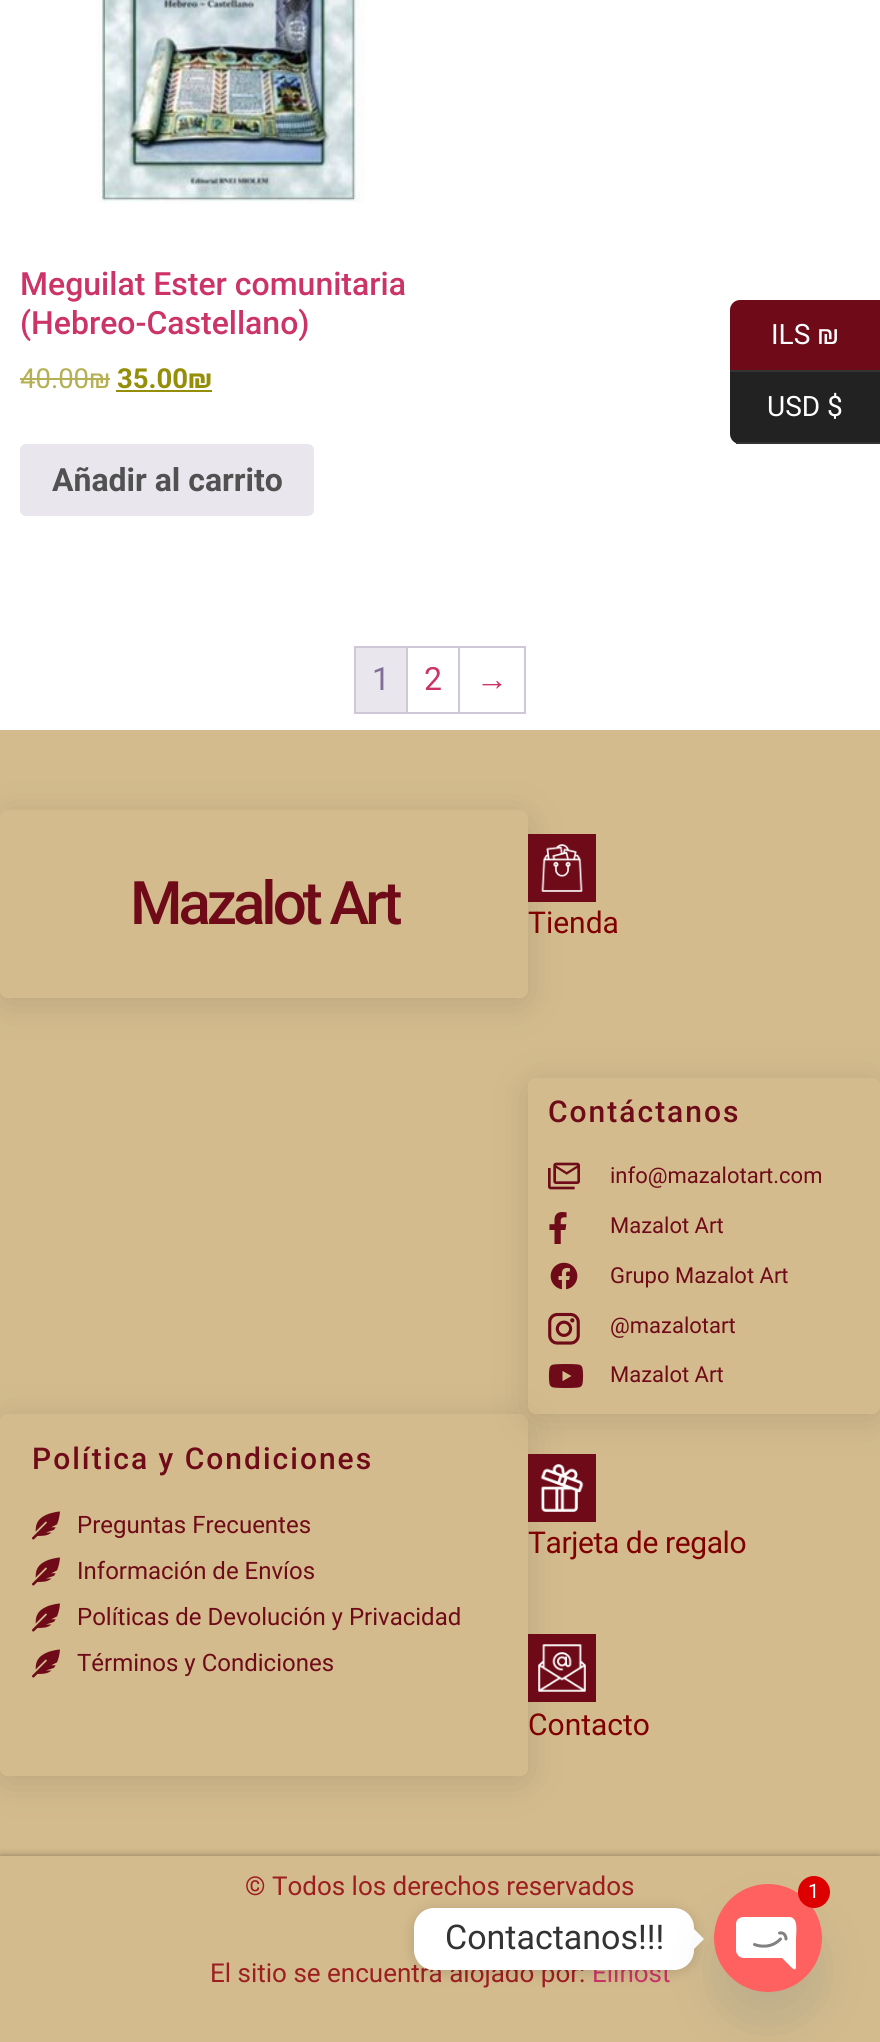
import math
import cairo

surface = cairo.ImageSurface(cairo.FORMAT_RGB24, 880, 2042)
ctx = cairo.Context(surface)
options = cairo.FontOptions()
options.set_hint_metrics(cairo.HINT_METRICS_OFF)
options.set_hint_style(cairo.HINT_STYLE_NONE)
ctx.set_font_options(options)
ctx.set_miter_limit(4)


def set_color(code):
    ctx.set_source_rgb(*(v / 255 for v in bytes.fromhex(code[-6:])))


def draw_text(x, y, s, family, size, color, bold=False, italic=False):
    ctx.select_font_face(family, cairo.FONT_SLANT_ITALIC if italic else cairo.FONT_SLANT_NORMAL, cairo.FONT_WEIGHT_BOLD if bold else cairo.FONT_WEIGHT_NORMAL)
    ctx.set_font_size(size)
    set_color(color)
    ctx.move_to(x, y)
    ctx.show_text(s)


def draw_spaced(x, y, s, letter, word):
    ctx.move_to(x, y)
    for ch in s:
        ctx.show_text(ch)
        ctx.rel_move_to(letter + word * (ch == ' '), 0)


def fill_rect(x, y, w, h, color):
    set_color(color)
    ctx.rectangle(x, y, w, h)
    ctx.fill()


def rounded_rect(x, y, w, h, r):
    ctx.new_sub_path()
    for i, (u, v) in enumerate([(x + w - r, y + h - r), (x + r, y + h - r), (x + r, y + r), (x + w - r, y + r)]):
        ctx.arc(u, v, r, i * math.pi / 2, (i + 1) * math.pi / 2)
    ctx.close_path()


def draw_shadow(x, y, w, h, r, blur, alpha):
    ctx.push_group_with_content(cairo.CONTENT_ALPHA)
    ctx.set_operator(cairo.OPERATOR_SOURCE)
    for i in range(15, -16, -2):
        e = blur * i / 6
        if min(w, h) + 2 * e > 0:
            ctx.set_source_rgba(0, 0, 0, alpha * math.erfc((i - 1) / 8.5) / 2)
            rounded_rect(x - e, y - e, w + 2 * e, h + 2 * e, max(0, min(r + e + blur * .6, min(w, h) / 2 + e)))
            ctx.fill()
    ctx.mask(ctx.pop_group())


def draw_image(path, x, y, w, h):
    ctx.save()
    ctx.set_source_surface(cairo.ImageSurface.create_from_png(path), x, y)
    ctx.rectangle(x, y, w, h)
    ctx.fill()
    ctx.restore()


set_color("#ffffff")
ctx.paint()
draw_image("assets/img1.png", 96, 0, 269, 203)
draw_text(20, 295, "Meguilat Ester comunitaria", "Roboto Medium", 32, "#cc3366")
draw_text(20, 334, "(Hebreo-Castellano)", "Roboto Medium", 32, "#cc3366")
draw_text(20, 388, "40.00₪", "Roboto", 27.5, "#b5b053")
fill_rect(20, 378, 90, 2, "#b5b053")
draw_text(117, 388, "35.00₪", "Roboto", 27.5, "#958e09", bold=True)
fill_rect(116, 390, 96, 2, "#958e09")
set_color("#e9e6ed")
rounded_rect(20, 444, 294, 72, 6)
ctx.fill()
draw_text(52, 491, "Añadir al carrito", "Roboto", 32, "#515151", bold=True)
fill_rect(354, 646, 172, 2, "#cfc8d8")
fill_rect(354, 712, 172, 2, "#cfc8d8")
fill_rect(354, 646, 2, 68, "#cfc8d8")
fill_rect(406, 648, 2, 64, "#cfc8d8")
fill_rect(356, 648, 50, 64, "#e9e6ed")
draw_text(372, 690, "1", "Roboto", 32, "#816f98")
fill_rect(458, 648, 2, 64, "#cfc8d8")
draw_text(424, 690, "2", "Roboto", 32, "#cc3366")
fill_rect(524, 648, 2, 64, "#cfc8d8")
draw_text(476, 690, "→", "Liberation Sans", 32, "#cc3366")
set_color("#6f0b19")
ctx.new_path()
ctx.move_to(740, 300)
ctx.line_to(880, 300)
ctx.line_to(880, 372)
ctx.line_to(730, 372)
ctx.line_to(730, 310)
ctx.curve_to(730, 304.5, 734.5, 300, 740, 300)
ctx.close_path()
ctx.fill()
fill_rect(730, 370, 150, 2, "#333333")
draw_text(771, 344, "ILS ₪", "Roboto", 28, "#ffffff")
set_color("#222222")
ctx.new_path()
ctx.move_to(730, 372)
ctx.line_to(880, 372)
ctx.line_to(880, 444)
ctx.line_to(740, 444)
ctx.curve_to(734.5, 444, 730, 439.5, 730, 434)
ctx.close_path()
ctx.fill()
fill_rect(736, 442, 144, 2, "#333333")
draw_text(767, 416, "USD $", "Roboto", 28, "#ffffff")
fill_rect(0, 730, 880, 1126, "#d3bb8d")
ctx.save()
ctx.set_fill_rule(cairo.FILL_RULE_EVEN_ODD)
ctx.new_path()
ctx.move_to(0, 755)
ctx.line_to(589, 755)
ctx.line_to(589, 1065)
ctx.line_to(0, 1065)
ctx.close_path()
ctx.move_to(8, 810)
ctx.line_to(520, 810)
ctx.curve_to(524.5, 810, 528, 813.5, 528, 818)
ctx.line_to(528, 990)
ctx.curve_to(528, 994.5, 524.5, 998, 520, 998)
ctx.line_to(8, 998)
ctx.curve_to(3.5, 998, 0, 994.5, 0, 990)
ctx.line_to(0, 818)
ctx.curve_to(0, 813.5, 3.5, 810, 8, 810)
ctx.close_path()
ctx.clip()
set_color("#000000")
draw_shadow(0, 816, 528, 188, 8, 20, 0.12)
ctx.restore()
ctx.select_font_face("Roboto Medium")
ctx.set_font_size(60)
set_color("#6f0b19")
draw_spaced(130, 924, "Mazalot Art", -4, 0)
draw_image("assets/img2.png", 528, 834, 68, 68)
draw_text(528, 933, "Tienda", "Roboto", 30, "#800000")
ctx.save()
ctx.set_fill_rule(cairo.FILL_RULE_EVEN_ODD)
ctx.new_path()
ctx.move_to(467, 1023)
ctx.line_to(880, 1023)
ctx.line_to(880, 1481)
ctx.line_to(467, 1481)
ctx.close_path()
ctx.move_to(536, 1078)
ctx.line_to(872, 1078)
ctx.curve_to(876.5, 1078, 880, 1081.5, 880, 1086)
ctx.line_to(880, 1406)
ctx.curve_to(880, 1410.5, 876.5, 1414, 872, 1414)
ctx.line_to(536, 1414)
ctx.curve_to(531.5, 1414, 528, 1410.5, 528, 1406)
ctx.line_to(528, 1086)
ctx.curve_to(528, 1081.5, 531.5, 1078, 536, 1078)
ctx.close_path()
ctx.clip()
set_color("#000000")
draw_shadow(528, 1084, 352, 336, 8, 20, 0.12)
ctx.restore()
ctx.select_font_face("Roboto Medium")
set_color("#6f0b19")
draw_spaced(548, 1122, "Contáctanos", 2, 0)
draw_image("assets/img3.png", 548, 1162, 32, 28)
draw_text(610, 1183, "info@mazalotart.com", "Roboto", 22, "#6f0b19")
draw_image("assets/img4.png", 549, 1212, 18, 32)
draw_text(610, 1233, "Mazalot Art", "Roboto", 22, "#6f0b19")
draw_image("assets/img5.png", 550, 1262, 28, 28)
draw_text(610, 1283, "Grupo Mazalot Art", "Roboto", 22, "#6f0b19")
draw_image("assets/img6.png", 548, 1312, 32, 33)
draw_text(610, 1333, "@mazalotart", "Roboto", 22, "#6f0b19")
draw_image("assets/img7.png", 548, 1364, 36, 24)
draw_text(610, 1382, "Mazalot Art", "Roboto", 22, "#6f0b19")
ctx.save()
ctx.set_fill_rule(cairo.FILL_RULE_EVEN_ODD)
ctx.new_path()
ctx.move_to(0, 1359)
ctx.line_to(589, 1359)
ctx.line_to(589, 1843)
ctx.line_to(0, 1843)
ctx.close_path()
ctx.move_to(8, 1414)
ctx.line_to(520, 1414)
ctx.curve_to(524.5, 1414, 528, 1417.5, 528, 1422)
ctx.line_to(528, 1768)
ctx.curve_to(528, 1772.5, 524.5, 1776, 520, 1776)
ctx.line_to(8, 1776)
ctx.curve_to(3.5, 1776, 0, 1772.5, 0, 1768)
ctx.line_to(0, 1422)
ctx.curve_to(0, 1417.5, 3.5, 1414, 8, 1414)
ctx.close_path()
ctx.clip()
set_color("#000000")
draw_shadow(0, 1420, 528, 362, 8, 20, 0.12)
ctx.restore()
ctx.select_font_face("Roboto Medium")
ctx.set_font_size(30)
draw_spaced(32, 1469, "Política y Condiciones", 2, 0)
draw_image("assets/img8.png", 32, 1511, 28, 29)
draw_text(77, 1533, "Preguntas Frecuentes", "Roboto", 24, "#6f0b19")
draw_image("assets/img8.png", 32, 1557, 28, 29)
draw_text(77, 1579, "Información de Envíos", "Roboto", 24, "#6f0b19")
draw_image("assets/img8.png", 32, 1603, 28, 29)
draw_text(77, 1625, "Políticas de Devolución y Privacidad", "Roboto", 24, "#6f0b19")
draw_image("assets/img8.png", 32, 1649, 28, 29)
draw_text(77, 1671, "Términos y Condiciones", "Roboto", 24, "#6f0b19")
draw_image("assets/img9.png", 528, 1454, 68, 68)
ctx.set_font_size(30)
set_color("#800000")
draw_spaced(528, 1553, "Tarjeta de regalo", -0.4, 0)
draw_image("assets/img10.png", 528, 1634, 68, 68)
draw_text(528, 1735, "Contacto", "Roboto", 30, "#800000")
set_color("#000000")
draw_shadow(0, 1856, 880, 186, 0, 4, 0.36)
fill_rect(0, 1856, 880, 186, "#d3bb8d")
draw_text(245, 1895, "© Todos los derechos reservados", "Roboto", 26, "#9d1e21")
draw_text(210, 1982, "El sitio se encuentra alojado por:", "Roboto", 26, "#9d1e21")
draw_text(592, 1982, "Elihost", "Roboto", 26, "#cc3366")
set_color("#000000")
draw_shadow(414, 1910, 280, 62, 20, 7.5, 0.15)
set_color("#ffffff")
rounded_rect(414, 1908, 280, 62, 20)
ctx.fill()
ctx.new_path()
ctx.move_to(694, 1949)
ctx.line_to(694, 1929)
ctx.line_to(704, 1939)
ctx.close_path()
ctx.fill()
set_color("#49687e")
draw_shadow(714, 1916, 108, 108, 54, 24, 0.16)
set_color("#ff6060")
ctx.arc(768, 1938, 54, 0, 2 * math.pi)
ctx.fill()
set_color("#ffffff")
ctx.new_path()
ctx.move_to(789, 1917)
ctx.line_to(744, 1917)
ctx.curve_to(739, 1917, 736, 1920, 736, 1924)
ctx.line_to(736, 1950)
ctx.curve_to(736, 1955, 740, 1958, 744, 1958)
ctx.line_to(782, 1958)
ctx.line_to(789, 1965)
ctx.curve_to(790, 1966, 795, 1972, 796, 1968)
ctx.line_to(796, 1939)
ctx.curve_to(796, 1932, 799, 1917, 789, 1917)
ctx.close_path()
ctx.fill()
ctx.new_path()
ctx.move_to(754.5, 1944.5)
ctx.curve_to(759.5, 1946.5, 771.5, 1948.5, 780.5, 1939)
ctx.move_to(786, 1939)
ctx.curve_to(786, 1936.5, 784.5, 1932, 779.5, 1933)
set_color("#808080")
ctx.set_line_width(3)
ctx.set_line_cap(cairo.LINE_CAP_ROUND)
ctx.set_line_join(cairo.LINE_JOIN_ROUND)
ctx.stroke()
set_color("#dd0000")
ctx.arc(814, 1892, 16, 0, 2 * math.pi)
ctx.fill()
draw_text(808, 1898, "1", "Roboto", 20, "#ffffff")
draw_text(445, 1949, "Contactanos!!!", "Roboto", 34, "#333333")
surface.write_to_png("output.png")
